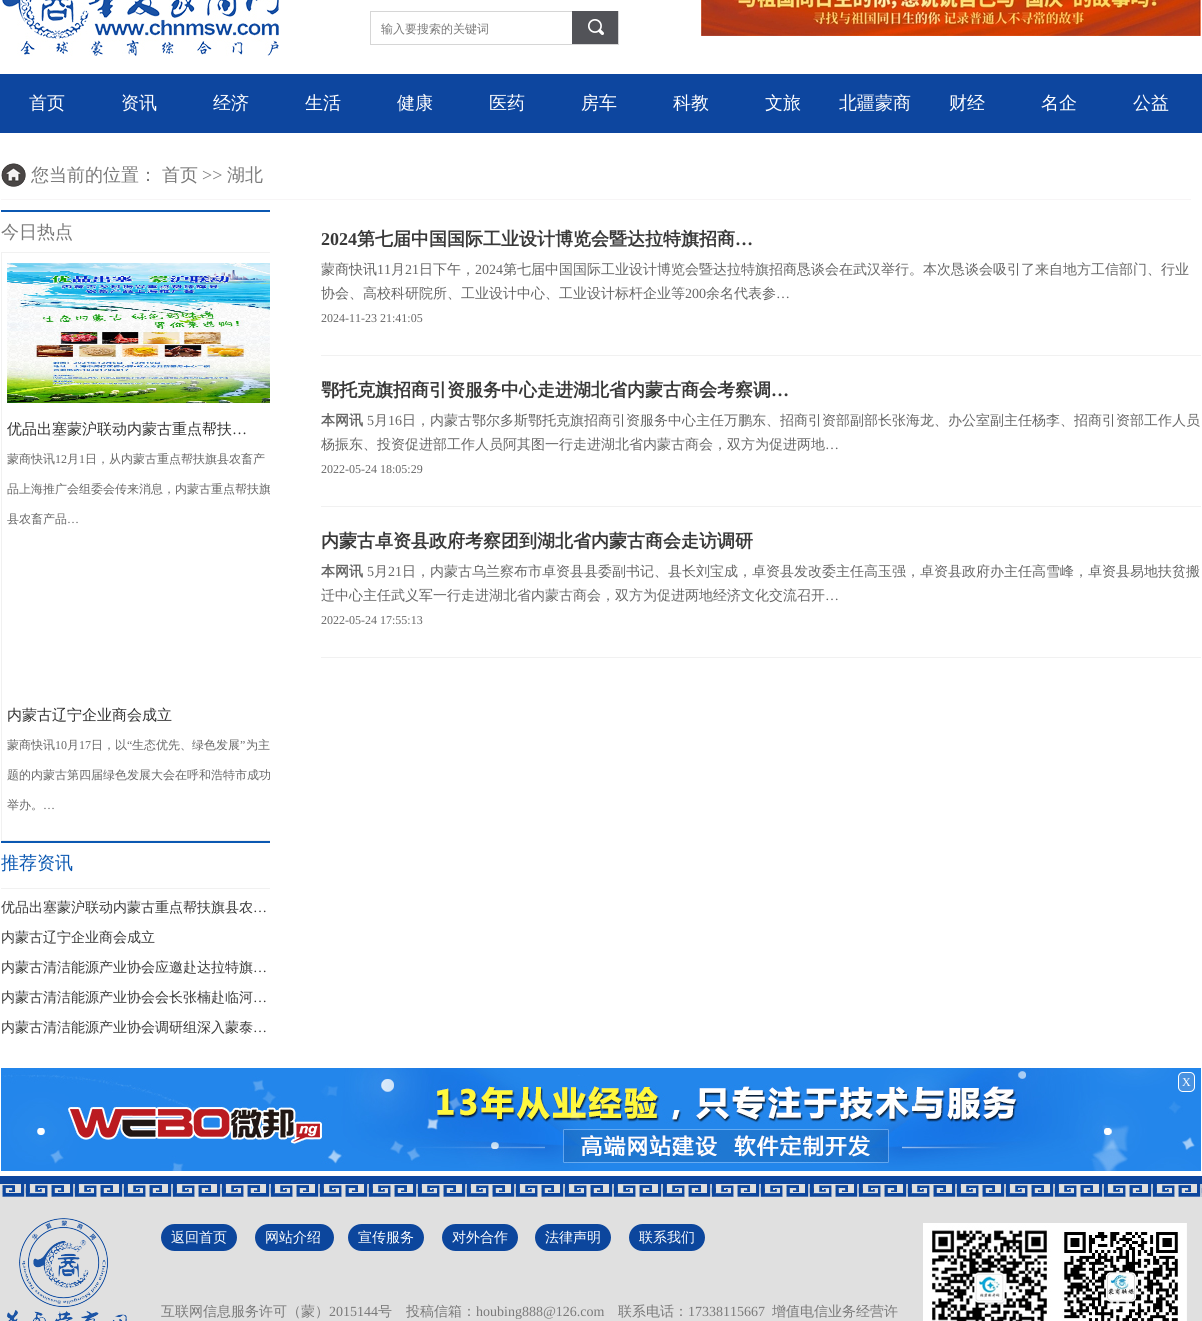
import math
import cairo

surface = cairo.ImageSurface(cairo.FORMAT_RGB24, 1202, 1321)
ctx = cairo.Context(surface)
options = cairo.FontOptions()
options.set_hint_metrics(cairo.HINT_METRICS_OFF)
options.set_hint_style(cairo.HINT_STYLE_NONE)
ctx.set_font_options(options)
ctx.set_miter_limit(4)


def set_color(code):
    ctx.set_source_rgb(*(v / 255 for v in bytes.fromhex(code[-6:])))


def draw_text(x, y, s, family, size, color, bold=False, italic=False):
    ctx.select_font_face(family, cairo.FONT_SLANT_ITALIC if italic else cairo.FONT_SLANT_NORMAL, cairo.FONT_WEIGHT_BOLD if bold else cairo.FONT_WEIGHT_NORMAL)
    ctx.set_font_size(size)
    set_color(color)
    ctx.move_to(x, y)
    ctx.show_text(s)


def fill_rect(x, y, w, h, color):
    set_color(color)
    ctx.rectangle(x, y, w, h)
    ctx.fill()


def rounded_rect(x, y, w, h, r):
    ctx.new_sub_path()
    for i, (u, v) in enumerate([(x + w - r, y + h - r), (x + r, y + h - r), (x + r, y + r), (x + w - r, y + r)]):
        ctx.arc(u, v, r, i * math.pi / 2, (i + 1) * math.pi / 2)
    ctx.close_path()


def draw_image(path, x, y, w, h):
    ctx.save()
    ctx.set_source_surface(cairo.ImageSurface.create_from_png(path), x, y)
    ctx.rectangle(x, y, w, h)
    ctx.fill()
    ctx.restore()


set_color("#ffffff")
ctx.paint()
fill_rect(0, 74, 1202, 59, "#0d469f")
draw_image("assets/img1.png", 2, 0, 277, 56)
ctx.rectangle(370.5, 11.5, 248, 33)
set_color("#d6d6d6")
ctx.set_line_width(1)
ctx.stroke()
draw_text(381, 33, "输入要搜索的关键词", "WenQuanYi Zen Hei Medium", 12, "#797979")
fill_rect(572, 11, 46, 33, "#525358")
draw_image("assets/img2.png", 588, 19, 16, 16)
draw_image("assets/img3.png", 701, 0, 500, 36)
draw_text(29, 109, "首页", "WenQuanYi Zen Hei Medium", 18, "#ffffff")
draw_text(121, 109, "资讯", "WenQuanYi Zen Hei Medium", 18, "#ffffff")
draw_text(213, 109, "经济", "WenQuanYi Zen Hei Medium", 18, "#ffffff")
draw_text(305, 109, "生活", "WenQuanYi Zen Hei Medium", 18, "#ffffff")
draw_text(397, 109, "健康", "WenQuanYi Zen Hei Medium", 18, "#ffffff")
draw_text(489, 109, "医药", "WenQuanYi Zen Hei Medium", 18, "#ffffff")
draw_text(581, 109, "房车", "WenQuanYi Zen Hei Medium", 18, "#ffffff")
draw_text(673, 109, "科教", "WenQuanYi Zen Hei Medium", 18, "#ffffff")
draw_text(765, 109, "文旅", "WenQuanYi Zen Hei Medium", 18, "#ffffff")
draw_text(839, 109, "北疆蒙商", "WenQuanYi Zen Hei Medium", 18, "#ffffff")
draw_text(949, 109, "财经", "WenQuanYi Zen Hei Medium", 18, "#ffffff")
draw_text(1041, 109, "名企", "WenQuanYi Zen Hei Medium", 18, "#ffffff")
draw_text(1133, 109, "公益", "WenQuanYi Zen Hei Medium", 18, "#ffffff")
draw_image("assets/img4.png", 1, 163, 25, 24)
fill_rect(1, 199, 1190, 1, "#f7f5f6")
draw_text(31, 181, "您当前的位置：", "WenQuanYi Zen Hei Medium", 18, "#797979")
draw_text(162, 181, "首页", "WenQuanYi Zen Hei Medium", 18, "#797979")
draw_text(202, 181, ">>", "Liberation Serif", 18, "#797979")
draw_text(227, 181, "湖北", "WenQuanYi Zen Hei Medium", 18, "#797979")
fill_rect(1, 210, 269, 2, "#0b58b2")
draw_text(1, 238, "今日热点", "WenQuanYi Zen Hei Medium", 18, "#797979")
ctx.save()
ctx.rectangle(1, 210, 269, 631)
ctx.clip()
ctx.rectangle(1.5, 252.5, 279, 588)
set_color("#f1f1f1")
ctx.stroke()
ctx.restore()
draw_image("assets/img5.png", 7, 263, 263, 140)
draw_text(7, 434, "优品出塞蒙沪联动内蒙古重点帮扶", "WenQuanYi Zen Hei Medium", 15, "#333333")
draw_text(232, 434, "…", "Liberation Serif", 15, "#333333")
draw_text(7, 463, "蒙商快讯", "WenQuanYi Zen Hei Medium", 12, "#666666")
draw_text(55, 463, "12", "Liberation Serif", 12, "#666666")
draw_text(67, 463, "月", "WenQuanYi Zen Hei Medium", 12, "#666666")
draw_text(79, 463, "1", "Liberation Serif", 12, "#666666")
draw_text(85, 463, "日，从内蒙古重点帮扶旗县农畜产", "WenQuanYi Zen Hei Medium", 12, "#666666")
ctx.save()
ctx.rectangle(1, 210, 269, 631)
ctx.clip()
draw_text(7, 493, "品上海推广会组委会传来消息，内蒙古重点帮扶旗", "WenQuanYi Zen Hei Medium", 12, "#666666")
ctx.restore()
draw_text(7, 523, "县农畜产品", "WenQuanYi Zen Hei Medium", 12, "#666666")
draw_text(67, 523, "…", "Liberation Serif", 12, "#666666")
draw_text(7, 720, "内蒙古辽宁企业商会成立", "WenQuanYi Zen Hei Medium", 15, "#333333")
draw_text(7, 749, "蒙商快讯", "WenQuanYi Zen Hei Medium", 12, "#666666")
draw_text(55, 749, "10", "Liberation Serif", 12, "#666666")
draw_text(67, 749, "月", "WenQuanYi Zen Hei Medium", 12, "#666666")
draw_text(79, 749, "17", "Liberation Serif", 12, "#666666")
draw_text(91, 749, "日，以", "WenQuanYi Zen Hei Medium", 12, "#666666")
draw_text(127, 749, "“", "Liberation Serif", 12, "#666666")
draw_text(132, 749, "生态优先、绿色发展", "WenQuanYi Zen Hei Medium", 12, "#666666")
draw_text(240, 749, "”", "Liberation Serif", 12, "#666666")
draw_text(246, 749, "为主", "WenQuanYi Zen Hei Medium", 12, "#666666")
draw_text(7, 779, "题的内蒙古第四届绿色发展大会在呼和浩特市成功", "WenQuanYi Zen Hei Medium", 12, "#666666")
draw_text(7, 809, "举办。", "WenQuanYi Zen Hei Medium", 12, "#666666")
draw_text(43, 809, "…", "Liberation Serif", 12, "#666666")
fill_rect(1, 841, 269, 2, "#0b58b2")
fill_rect(1, 888, 269, 1, "#f1f1f1")
draw_text(1, 869, "推荐资讯", "WenQuanYi Zen Hei Medium", 18, "#0b58b2")
draw_text(1, 912, "优品出塞蒙沪联动内蒙古重点帮扶旗县农", "WenQuanYi Zen Hei Medium", 14, "#393939")
draw_text(253, 912, "…", "Liberation Serif", 14, "#393939")
draw_text(1, 942, "内蒙古辽宁企业商会成立", "WenQuanYi Zen Hei Medium", 14, "#393939")
draw_text(1, 972, "内蒙古清洁能源产业协会应邀赴达拉特旗", "WenQuanYi Zen Hei Medium", 14, "#393939")
draw_text(253, 972, "…", "Liberation Serif", 14, "#393939")
draw_text(1, 1002, "内蒙古清洁能源产业协会会长张楠赴临河", "WenQuanYi Zen Hei Medium", 14, "#393939")
draw_text(253, 1002, "…", "Liberation Serif", 14, "#393939")
draw_text(1, 1032, "内蒙古清洁能源产业协会调研组深入蒙泰", "WenQuanYi Zen Hei Medium", 14, "#393939")
draw_text(253, 1032, "…", "Liberation Serif", 14, "#393939")
fill_rect(321, 355, 880, 1, "#f1f1f1")
draw_text(321, 245, "2024", "Liberation Serif", 18, "#393939", bold=True)
draw_text(357, 245, "第七届中国国际工业设计博览会暨达拉特旗招商", "WenQuanYi Zen Hei", 18, "#393939", bold=True)
draw_text(735, 245, "…", "Liberation Serif", 18, "#393939", bold=True)
draw_text(321, 274, "蒙商快讯", "WenQuanYi Zen Hei Medium", 14, "#666666")
draw_text(377, 274, "11", "Liberation Serif", 14, "#666666")
draw_text(391, 274, "月", "WenQuanYi Zen Hei Medium", 14, "#666666")
draw_text(405, 274, "21", "Liberation Serif", 14, "#666666")
draw_text(419, 274, "日下午，", "WenQuanYi Zen Hei Medium", 14, "#666666")
draw_text(475, 274, "2024", "Liberation Serif", 14, "#666666")
draw_text(503, 274, "第七届中国国际工业设计博览会暨达拉特旗招商恳谈会在武汉举行。本次恳谈会吸引了来自地方工信部门、行业", "WenQuanYi Zen Hei Medium", 14, "#666666")
draw_text(321, 298, "协会、高校科研院所、工业设计中心、工业设计标杆企业等", "WenQuanYi Zen Hei Medium", 14, "#666666")
draw_text(685, 298, "200", "Liberation Serif", 14, "#666666")
draw_text(706, 298, "余名代表参", "WenQuanYi Zen Hei Medium", 14, "#666666")
draw_text(776, 298, "…", "Liberation Serif", 14, "#666666")
draw_text(321, 322, "2024-11-23 21:41:05", "Liberation Serif", 12, "#666666")
fill_rect(321, 506, 880, 1, "#f1f1f1")
draw_text(321, 396, "鄂托克旗招商引资服务中心走进湖北省内蒙古商会考察调", "WenQuanYi Zen Hei", 18, "#393939", bold=True)
draw_text(771, 396, "…", "Liberation Serif", 18, "#393939", bold=True)
draw_text(321, 425, "本网讯", "WenQuanYi Zen Hei", 14, "#666666", bold=True)
draw_text(367, 425, "5", "Liberation Serif", 14, "#666666")
draw_text(374, 425, "月", "WenQuanYi Zen Hei Medium", 14, "#666666")
draw_text(388, 425, "16", "Liberation Serif", 14, "#666666")
draw_text(402, 425, "日，内蒙古鄂尔多斯鄂托克旗招商引资服务中心主任万鹏东、招商引资部副部长张海龙、办公室副主任杨李、招商引资部工作人员", "WenQuanYi Zen Hei Medium", 14, "#666666")
draw_text(321, 449, "杨振东、投资促进部工作人员阿其图一行走进湖北省内蒙古商会，双方为促进两地", "WenQuanYi Zen Hei Medium", 14, "#666666")
draw_text(825, 449, "…", "Liberation Serif", 14, "#666666")
draw_text(321, 473, "2022-05-24 18:05:29", "Liberation Serif", 12, "#666666")
fill_rect(321, 657, 880, 1, "#f1f1f1")
draw_text(321, 547, "内蒙古卓资县政府考察团到湖北省内蒙古商会走访调研", "WenQuanYi Zen Hei", 18, "#393939", bold=True)
draw_text(321, 576, "本网讯", "WenQuanYi Zen Hei", 14, "#666666", bold=True)
draw_text(367, 576, "5", "Liberation Serif", 14, "#666666")
draw_text(374, 576, "月", "WenQuanYi Zen Hei Medium", 14, "#666666")
draw_text(388, 576, "21", "Liberation Serif", 14, "#666666")
draw_text(402, 576, "日，内蒙古乌兰察布市卓资县县委副书记、县长刘宝成，卓资县发改委主任高玉强，卓资县政府办主任高雪峰，卓资县易地扶贫搬", "WenQuanYi Zen Hei Medium", 14, "#666666")
draw_text(321, 600, "迁中心主任武义军一行走进湖北省内蒙古商会，双方为促进两地经济文化交流召开", "WenQuanYi Zen Hei Medium", 14, "#666666")
draw_text(825, 600, "…", "Liberation Serif", 14, "#666666")
draw_text(321, 624, "2022-05-24 17:55:13", "Liberation Serif", 12, "#666666")
draw_image("assets/img6.png", 1, 1068, 1200, 103)
set_color("#4992e0")
rounded_rect(1178.5, 1072.5, 16, 19, 4.5)
ctx.fill_preserve()
set_color("#ffffff")
ctx.stroke()
draw_text(1182, 1086, "X", "Liberation Serif", 12, "#ffffff")
draw_image("assets/img7.png", 0, 1176, 1202, 145)
draw_image("assets/img8.png", 7, 1218, 120, 103)
set_color("#0c469d")
rounded_rect(161, 1224, 76, 27, 13.5)
ctx.fill()
draw_text(171, 1242, "返回首页", "WenQuanYi Zen Hei Medium", 14, "#ffffff")
set_color("#0c469d")
rounded_rect(255, 1224, 79, 27, 13.5)
ctx.fill()
draw_text(265, 1242, "网站介绍", "WenQuanYi Zen Hei Medium", 14, "#ffffff")
set_color("#0c469d")
rounded_rect(348, 1224, 76, 27, 13.5)
ctx.fill()
draw_text(358, 1242, "宣传服务", "WenQuanYi Zen Hei Medium", 14, "#ffffff")
set_color("#0c469d")
rounded_rect(442, 1224, 76, 27, 13.5)
ctx.fill()
draw_text(452, 1242, "对外合作", "WenQuanYi Zen Hei Medium", 14, "#ffffff")
set_color("#0c469d")
rounded_rect(535, 1224, 76, 27, 13.5)
ctx.fill()
draw_text(545, 1242, "法律声明", "WenQuanYi Zen Hei Medium", 14, "#ffffff")
set_color("#0c469d")
rounded_rect(629, 1224, 76, 27, 13.5)
ctx.fill()
draw_text(639, 1242, "联系我们", "WenQuanYi Zen Hei Medium", 14, "#ffffff")
draw_text(161, 1316, "互联网信息服务许可（蒙）", "WenQuanYi Zen Hei Medium", 14, "#797979")
draw_text(329, 1316, "2015144", "Liberation Serif", 14, "#797979")
draw_text(378, 1316, "号　投稿信箱：", "WenQuanYi Zen Hei Medium", 14, "#797979")
draw_text(476, 1316, "houbing888@126.com", "Liberation Serif", 14, "#797979")
draw_text(618, 1316, "联系电话：", "WenQuanYi Zen Hei Medium", 14, "#797979")
draw_text(688, 1316, "17338115667", "Liberation Serif", 14, "#797979")
draw_text(772, 1316, "增值电信业务经营许", "WenQuanYi Zen Hei Medium", 14, "#797979")
draw_image("assets/img9.png", 923, 1223, 132, 98)
draw_image("assets/img10.png", 1055, 1223, 132, 98)
surface.write_to_png("output.png")
